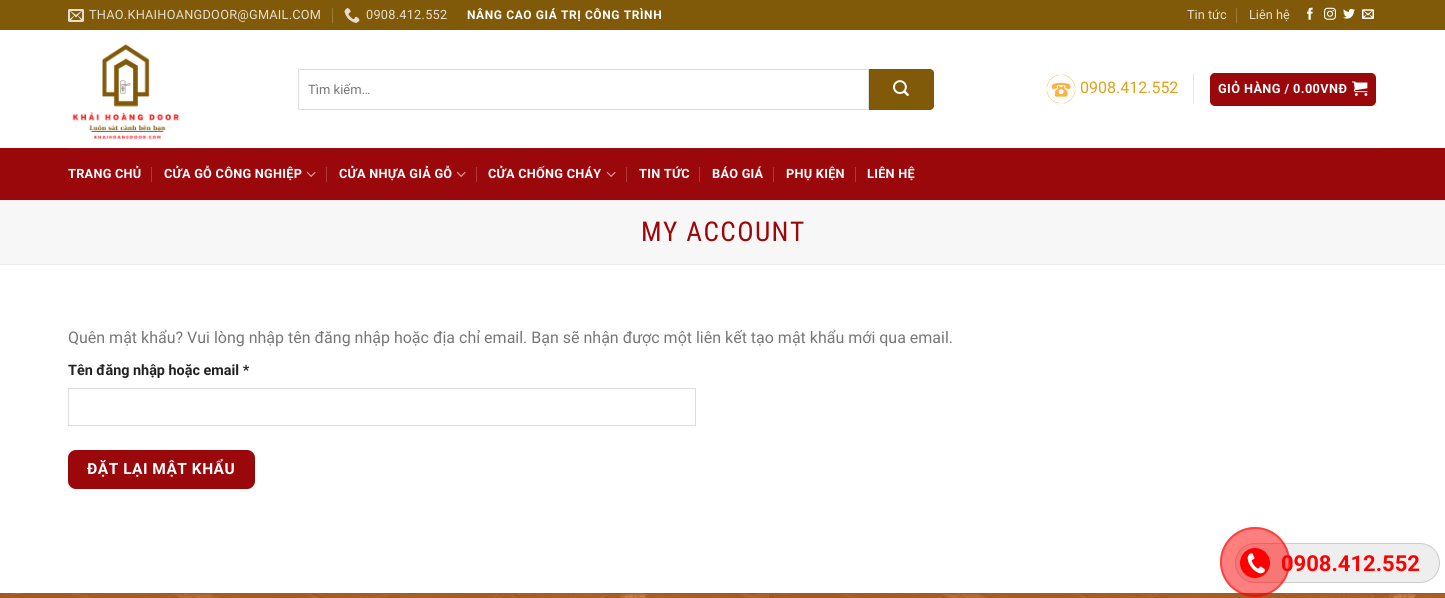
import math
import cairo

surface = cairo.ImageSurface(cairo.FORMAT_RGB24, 1445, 598)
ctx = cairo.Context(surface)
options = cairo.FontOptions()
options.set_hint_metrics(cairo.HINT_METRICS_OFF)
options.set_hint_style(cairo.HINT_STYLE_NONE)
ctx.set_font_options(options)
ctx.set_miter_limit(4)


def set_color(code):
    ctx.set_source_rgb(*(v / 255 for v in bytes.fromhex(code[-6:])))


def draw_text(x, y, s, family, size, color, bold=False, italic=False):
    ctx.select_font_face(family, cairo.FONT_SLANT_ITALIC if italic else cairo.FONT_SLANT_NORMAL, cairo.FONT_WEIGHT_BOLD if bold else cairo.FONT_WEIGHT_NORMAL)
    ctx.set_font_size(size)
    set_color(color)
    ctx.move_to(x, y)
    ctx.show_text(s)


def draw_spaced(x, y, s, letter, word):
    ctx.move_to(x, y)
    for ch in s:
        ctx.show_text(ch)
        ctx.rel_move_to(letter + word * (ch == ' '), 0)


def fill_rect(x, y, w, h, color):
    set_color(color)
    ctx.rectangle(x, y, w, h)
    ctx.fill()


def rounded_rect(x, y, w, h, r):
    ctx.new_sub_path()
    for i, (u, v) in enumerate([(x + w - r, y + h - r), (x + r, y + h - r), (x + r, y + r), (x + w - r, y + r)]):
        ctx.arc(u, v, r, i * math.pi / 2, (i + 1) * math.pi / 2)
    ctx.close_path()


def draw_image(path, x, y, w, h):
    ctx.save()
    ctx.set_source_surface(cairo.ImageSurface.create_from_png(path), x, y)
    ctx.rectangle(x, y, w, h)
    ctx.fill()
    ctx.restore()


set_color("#ffffff")
ctx.paint()
fill_rect(0, 0, 1445, 30, "#805a09")
draw_image("assets/img1.png", 68, 9, 16, 13)
ctx.select_font_face("Roboto")
ctx.set_font_size(12.75)
set_color("#e6dece")
draw_spaced(89, 19, "THAO.KHAIHOANGDOOR@GMAIL.COM", 0.25, 0)
fill_rect(332, 8, 1, 15, "#997b3a")
draw_image("assets/img2.png", 344, 8, 16, 15)
set_color("#e6dece")
draw_spaced(366, 19, "0908.412.552", 0.25, 0)
ctx.select_font_face("Roboto", cairo.FONT_SLANT_NORMAL, cairo.FONT_WEIGHT_BOLD)
ctx.set_font_size(12)
set_color("#ffffff")
draw_spaced(467, 19, "NÂNG CAO GIÁ TRỊ CÔNG TRÌNH", 0.6, 0)
draw_text(1187, 19, "Tin tức", "Roboto", 12.75, "#e6dece")
fill_rect(1236, 8, 1, 15, "#997b3a")
draw_text(1249, 19, "Liên hệ", "Roboto", 12.75, "#e6dece")
draw_image("assets/img3.png", 1307, 7, 6, 13)
draw_image("assets/img4.png", 1324, 7, 12, 13)
draw_image("assets/img5.png", 1343, 8, 12, 11)
draw_image("assets/img6.png", 1362, 9, 12, 10)
draw_image("assets/img7.png", 72, 44, 107, 95)
ctx.rectangle(298.5, 69.5, 570, 40)
set_color("#dddddd")
ctx.set_line_width(1)
ctx.stroke()
draw_text(308, 94, "Tìm kiếm…", "Roboto", 13, "#777777")
set_color("#805a09")
ctx.new_path()
ctx.move_to(869, 69)
ctx.line_to(930, 69)
ctx.curve_to(932, 69, 934, 71, 934, 73)
ctx.line_to(934, 106)
ctx.curve_to(934, 108, 932, 110, 930, 110)
ctx.line_to(869, 110)
ctx.close_path()
ctx.fill()
ctx.rectangle(869.5, 69.5, 64, 40)
ctx.set_source_rgba(0, 0, 0, 0.05)
ctx.stroke()
draw_image("assets/img8.png", 893, 80, 16, 16)
draw_image("assets/img9.png", 1046, 74, 30, 30)
draw_text(1080, 93, "0908.412.552", "Roboto", 16, "#e2a115")
fill_rect(1193, 74, 1, 30, "#e6e6e6")
set_color("#9b080b")
rounded_rect(1210, 73, 166, 33, 5)
ctx.fill()
ctx.rectangle(1210.5, 73.5, 165, 32)
ctx.set_source_rgba(0, 0, 0, 0.05)
ctx.stroke()
ctx.select_font_face("Roboto", cairo.FONT_SLANT_NORMAL, cairo.FONT_WEIGHT_BOLD)
ctx.set_font_size(12.75)
set_color("#ffffff")
draw_spaced(1218, 93, "GIỎ HÀNG / 0.00VNĐ", 0.4, 0)
draw_image("assets/img10.png", 1352, 81, 16, 15)
fill_rect(0, 148, 1445, 52, "#9b080b")
fill_rect(68, 148, 1310, 1, "#971316")
set_color("#ffffff")
draw_spaced(68, 178, "TRANG CHỦ", 0.25, 0)
fill_rect(151, 167, 1, 15, "#af393c")
set_color("#ffffff")
draw_spaced(164, 178, "CỬA GỖ CÔNG NGHIỆP", 0.25, 0)
draw_image("assets/img11.png", 306, 171, 10, 6)
fill_rect(326, 167, 1, 15, "#af393c")
set_color("#ffffff")
draw_spaced(339, 178, "CỬA NHỰA GIẢ GỖ", 0.25, 0)
draw_image("assets/img11.png", 456, 171, 10, 6)
fill_rect(476, 167, 1, 15, "#af393c")
set_color("#ffffff")
draw_spaced(488, 178, "CỬA CHỐNG CHÁY", 0.25, 0)
draw_image("assets/img11.png", 606, 171, 10, 6)
fill_rect(626, 167, 1, 15, "#af393c")
set_color("#ffffff")
draw_spaced(639, 178, "TIN TỨC", 0.25, 0)
fill_rect(699, 167, 1, 15, "#af393c")
set_color("#ffffff")
draw_spaced(712, 178, "BÁO GIÁ", 0.25, 0)
fill_rect(773, 167, 1, 15, "#af393c")
set_color("#ffffff")
draw_spaced(786, 178, "PHỤ KIỆN", 0.25, 0)
fill_rect(855, 167, 1, 15, "#af393c")
set_color("#ffffff")
draw_spaced(867, 178, "LIÊN HỆ", 0.25, 0)
fill_rect(0, 201, 1445, 63, "#f7f7f7")
fill_rect(0, 200, 1445, 1, "#ececec")
fill_rect(0, 264, 1445, 1, "#ececec")
ctx.select_font_face("Roboto Condensed")
ctx.set_font_size(27.25)
set_color("#9b080b")
draw_spaced(641, 241, "MY ACCOUNT", 1.4, 0)
draw_text(68, 343, "Quên mật khẩu? Vui lòng nhập tên đăng nhập hoặc địa chỉ email. Bạn sẽ nhận được một liên kết tạo mật khẩu mới qua email.", "Roboto", 16, "#777777")
draw_text(68, 375, "Tên đăng nhập hoặc email *", "Roboto", 14.4, "#222222", bold=True)
ctx.rectangle(68.5, 388.5, 627, 37)
set_color("#dddddd")
ctx.stroke()
set_color("#9b080b")
rounded_rect(68, 450, 187, 39, 8)
ctx.fill()
ctx.rectangle(68.5, 450.5, 186, 38)
ctx.set_source_rgba(0, 0, 0, 0.05)
ctx.stroke()
ctx.set_font_size(15.5)
set_color("#ffffff")
draw_spaced(87, 474, "ĐẶT LẠI MẬT KHẨU", 0.5, 0)
draw_image("assets/img12.png", 0, 593, 1445, 5)
ctx.set_source_rgba(0, 0, 0, 0.05)
ctx.rectangle(0, 593, 1445, 1)
ctx.fill()
set_color("#eeeeee")
rounded_rect(1235.5, 543.5, 204, 39, 19.5)
ctx.fill_preserve()
set_color("#cccccc")
ctx.stroke()
draw_text(1281, 571, "0908.412.552", "Roboto", 22, "#ff0000", bold=True)
ctx.set_source_rgba(1, 0, 0, 0.5)
ctx.new_path()
ctx.arc(1255, 562, 35, 0, 2 * math.pi)
ctx.fill()
ctx.arc(1255, 562, 34, 0, 2 * math.pi)
ctx.set_line_width(2)
ctx.stroke()
set_color("#ff0000")
ctx.arc(1255, 563, 15, 0, 2 * math.pi)
ctx.fill()
draw_image("assets/img13.png", 1247, 553, 18, 21)
surface.write_to_png("output.png")
